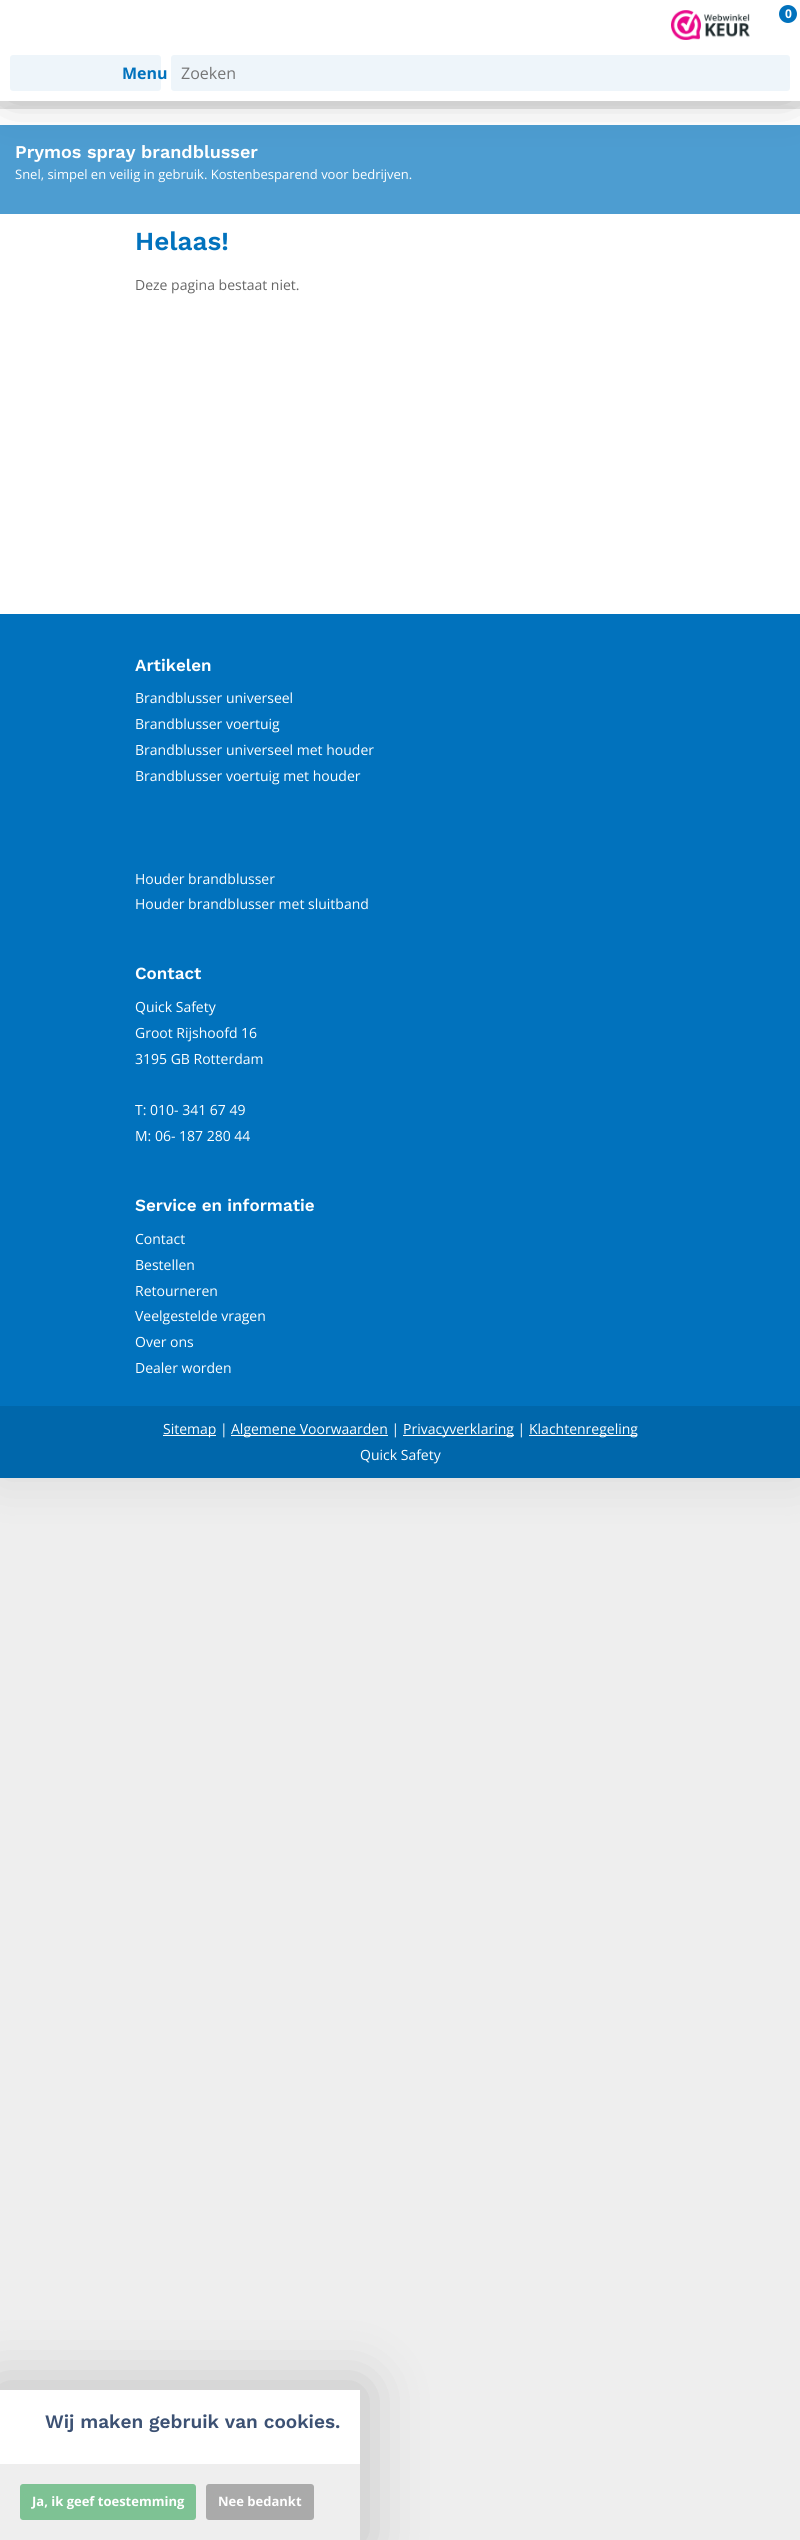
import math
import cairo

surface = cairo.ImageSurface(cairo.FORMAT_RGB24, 800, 2540)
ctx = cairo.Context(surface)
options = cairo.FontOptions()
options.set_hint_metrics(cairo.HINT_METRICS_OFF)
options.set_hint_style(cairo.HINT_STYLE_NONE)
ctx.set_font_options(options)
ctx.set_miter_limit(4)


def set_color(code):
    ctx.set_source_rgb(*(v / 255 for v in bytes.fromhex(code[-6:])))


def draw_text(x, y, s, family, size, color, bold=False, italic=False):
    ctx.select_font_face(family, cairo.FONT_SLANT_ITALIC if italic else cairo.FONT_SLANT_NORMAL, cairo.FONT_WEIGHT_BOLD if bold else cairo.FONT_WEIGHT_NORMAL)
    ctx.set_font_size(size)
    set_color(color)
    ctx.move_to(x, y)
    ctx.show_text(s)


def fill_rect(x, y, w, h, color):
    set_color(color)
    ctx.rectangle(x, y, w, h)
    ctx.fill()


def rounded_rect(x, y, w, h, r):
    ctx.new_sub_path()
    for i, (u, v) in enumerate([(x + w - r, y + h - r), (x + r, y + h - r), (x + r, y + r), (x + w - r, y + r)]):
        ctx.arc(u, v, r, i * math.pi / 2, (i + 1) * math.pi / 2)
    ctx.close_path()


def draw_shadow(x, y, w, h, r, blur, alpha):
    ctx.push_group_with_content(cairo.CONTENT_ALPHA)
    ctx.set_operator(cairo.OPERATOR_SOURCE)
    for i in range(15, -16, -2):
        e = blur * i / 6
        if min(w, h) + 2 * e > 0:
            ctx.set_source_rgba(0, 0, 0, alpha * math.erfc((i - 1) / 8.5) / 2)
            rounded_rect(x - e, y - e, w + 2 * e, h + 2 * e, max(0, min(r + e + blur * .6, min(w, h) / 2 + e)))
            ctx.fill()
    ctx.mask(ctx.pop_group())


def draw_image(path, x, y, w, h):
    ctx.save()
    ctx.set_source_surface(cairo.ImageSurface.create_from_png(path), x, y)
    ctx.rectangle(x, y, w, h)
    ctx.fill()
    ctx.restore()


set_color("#eeeeee")
ctx.paint()
set_color("#000000")
draw_shadow(0, 109, 800, 1369, 0, 25, 0.1)
fill_rect(0, 109, 800, 505, "#ffffff")
fill_rect(0, 125, 800, 89, "#4d9dd1")
set_color("#000000")
draw_shadow(8, 8, 784, 85, 0, 25, 0.25)
fill_rect(0, 0, 800, 101, "#ffffff")
draw_image("assets/img1.png", 671, 10, 79, 30)
set_color("#0172bd")
ctx.arc(788, 14, 9, 0, 2 * math.pi)
ctx.fill()
draw_text(785, 18, "0", "Open Sans", 12, "#ffffff", bold=True)
set_color("#eef5fa")
rounded_rect(10, 55, 151, 36, 3)
ctx.fill()
draw_text(122, 79, "Menu", "Open Sans", 16, "#0172bd", bold=True)
set_color("#eef5fa")
rounded_rect(171, 55, 619, 36, 3)
ctx.fill()
draw_text(181, 79, "Zoeken", "Open Sans", 16, "#757575")
draw_text(15, 158, "Prymos spray brandblusser", "Work Sans SemiBold", 18, "#ffffff")
draw_text(15, 179, "Snel, simpel en veilig in gebruik. Kostenbesparend voor bedrijven.", "Open Sans", 13, "#ffffff")
draw_text(135, 250, "Helaas!", "Work Sans SemiBold", 26, "#0172bd")
draw_text(135, 290, "Deze pagina bestaat niet.", "Open Sans", 14, "#666666")
fill_rect(0, 614, 800, 792, "#0172bd")
draw_text(135, 671, "Artikelen", "Work Sans SemiBold", 17, "#ffffff")
draw_text(135, 703, "Brandblusser universeel", "Open Sans", 14, "#ffffff")
draw_text(135, 729, "Brandblusser voertuig", "Open Sans", 14, "#ffffff")
draw_text(135, 755, "Brandblusser universeel met houder", "Open Sans", 14, "#ffffff")
draw_text(135, 781, "Brandblusser voertuig met houder", "Open Sans", 14, "#ffffff")
draw_text(135, 884, "Houder brandblusser", "Open Sans", 14, "#ffffff")
draw_text(135, 909, "Houder brandblusser met sluitband", "Open Sans", 14, "#ffffff")
draw_text(135, 979, "Contact", "Work Sans SemiBold", 17, "#ffffff")
draw_text(135, 1012, "Quick Safety", "Open Sans", 14, "#ffffff")
draw_text(135, 1038, "Groot Rijshoofd 16", "Open Sans", 14, "#ffffff")
draw_text(135, 1064, "3195 GB Rotterdam", "Open Sans", 14, "#ffffff")
draw_text(135, 1115, "T: 010- 341 67 49", "Open Sans", 14, "#ffffff")
draw_text(135, 1141, "M: 06- 187 280 44", "Open Sans", 14, "#ffffff")
draw_text(135, 1211, "Service en informatie", "Work Sans SemiBold", 17, "#ffffff")
draw_text(135, 1244, "Contact", "Open Sans", 14, "#ffffff")
draw_text(135, 1270, "Bestellen", "Open Sans", 14, "#ffffff")
draw_text(135, 1296, "Retourneren", "Open Sans", 14, "#ffffff")
draw_text(135, 1321, "Veelgestelde vragen", "Open Sans", 14, "#ffffff")
draw_text(135, 1347, "Over ons", "Open Sans", 14, "#ffffff")
draw_text(135, 1373, "Dealer worden", "Open Sans", 14, "#ffffff")
fill_rect(0, 1406, 800, 72, "#0067ab")
fill_rect(163, 1435, 53, 1, "#ffffff")
draw_text(163, 1434, "Sitemap |", "Open Sans", 14, "#ffffff")
fill_rect(231, 1435, 157, 1, "#ffffff")
draw_text(231, 1434, "Algemene Voorwaarden |", "Open Sans", 14, "#ffffff")
fill_rect(403, 1435, 111, 1, "#ffffff")
draw_text(403, 1434, "Privacyverklaring |", "Open Sans", 14, "#ffffff")
fill_rect(529, 1435, 108, 1, "#ffffff")
draw_text(529, 1434, "Klachtenregeling", "Open Sans", 14, "#ffffff")
draw_text(360, 1460, "Quick Safety", "Open Sans", 14, "#ffffff")
set_color("#000000")
draw_shadow(-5, 2385, 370, 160, 0, 30, 0.2)
fill_rect(0, 2390, 360, 74, "#ffffff")
draw_text(45, 2428, "Wij maken gebruik van cookies.", "Work Sans SemiBold", 19, "#3c5173")
fill_rect(0, 2464, 360, 76, "#eeeeee")
set_color("#7ec294")
rounded_rect(20, 2484, 176, 36, 3)
ctx.fill()
draw_text(32, 2506, "Ja, ik geef toestemming", "Open Sans", 13, "#ffffff", bold=True)
set_color("#aaaaaa")
rounded_rect(206, 2484, 108, 36, 3)
ctx.fill()
draw_text(218, 2506, "Nee bedankt", "Open Sans", 13, "#ffffff", bold=True)
surface.write_to_png("output.png")
